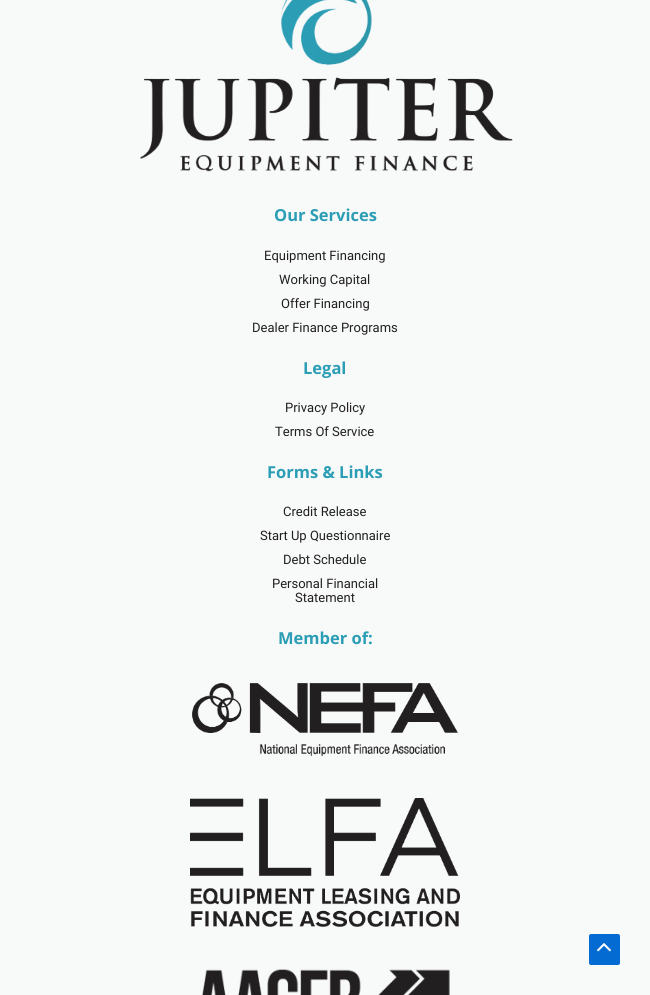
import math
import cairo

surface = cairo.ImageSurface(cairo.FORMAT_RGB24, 650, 995)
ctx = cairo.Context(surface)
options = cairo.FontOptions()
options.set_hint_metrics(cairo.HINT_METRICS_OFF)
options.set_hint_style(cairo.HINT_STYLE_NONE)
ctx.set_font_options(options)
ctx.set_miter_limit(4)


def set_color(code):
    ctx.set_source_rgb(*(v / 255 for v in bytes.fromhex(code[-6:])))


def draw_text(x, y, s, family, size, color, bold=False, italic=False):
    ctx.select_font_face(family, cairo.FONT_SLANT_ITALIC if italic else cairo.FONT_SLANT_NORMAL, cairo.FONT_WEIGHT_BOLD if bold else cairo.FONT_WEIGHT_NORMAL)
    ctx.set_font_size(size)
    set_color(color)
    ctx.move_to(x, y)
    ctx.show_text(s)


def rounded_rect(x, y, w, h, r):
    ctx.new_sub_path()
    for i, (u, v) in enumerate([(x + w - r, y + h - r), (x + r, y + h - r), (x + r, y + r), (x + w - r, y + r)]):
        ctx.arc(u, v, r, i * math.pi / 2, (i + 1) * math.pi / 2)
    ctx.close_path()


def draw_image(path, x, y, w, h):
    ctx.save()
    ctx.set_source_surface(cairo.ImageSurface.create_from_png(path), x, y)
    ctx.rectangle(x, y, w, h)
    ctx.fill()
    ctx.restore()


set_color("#f8f9f9")
ctx.paint()
draw_image("assets/img1.png", 140, 0, 373, 172)
draw_text(274, 221, "Our Services", "Open Sans", 16.5, "#2b9eb5", bold=True)
draw_text(264, 260, "Equipment Financing", "Roboto", 13, "#221f20")
draw_text(279, 284, "Working Capital", "Roboto", 13, "#221f20")
draw_text(281, 308, "Offer Financing", "Roboto", 13, "#221f20")
draw_text(252, 332, "Dealer Finance Programs", "Roboto", 13, "#221f20")
draw_text(303, 374, "Legal", "Open Sans", 16.5, "#2b9eb5", bold=True)
draw_text(285, 412, "Privacy Policy", "Roboto", 13, "#221f20")
draw_text(275, 436, "Terms Of Service", "Roboto", 13, "#221f20")
draw_text(267, 478, "Forms & Links", "Open Sans", 16.5, "#2b9eb5", bold=True)
draw_text(283, 516, "Credit Release", "Roboto", 13, "#221f20")
draw_text(260, 540, "Start Up Questionnaire", "Roboto", 13, "#221f20")
draw_text(283, 564, "Debt Schedule", "Roboto", 13, "#221f20")
draw_text(272, 588, "Personal Financial", "Roboto", 13, "#221f20")
draw_text(295, 602, "Statement", "Roboto", 13, "#221f20")
draw_text(278, 644, "Member of:", "Open Sans", 16.5, "#2b9eb5", bold=True)
draw_image("assets/img2.png", 192, 683, 266, 73)
draw_image("assets/img3.png", 190, 798, 270, 129)
draw_image("assets/img4.png", 202, 969, 248, 26)
set_color("#046bd2")
rounded_rect(589, 934, 31, 31, 2)
ctx.fill()
draw_image("assets/img5.png", 597, 943, 15, 9)
surface.write_to_png("output.png")
